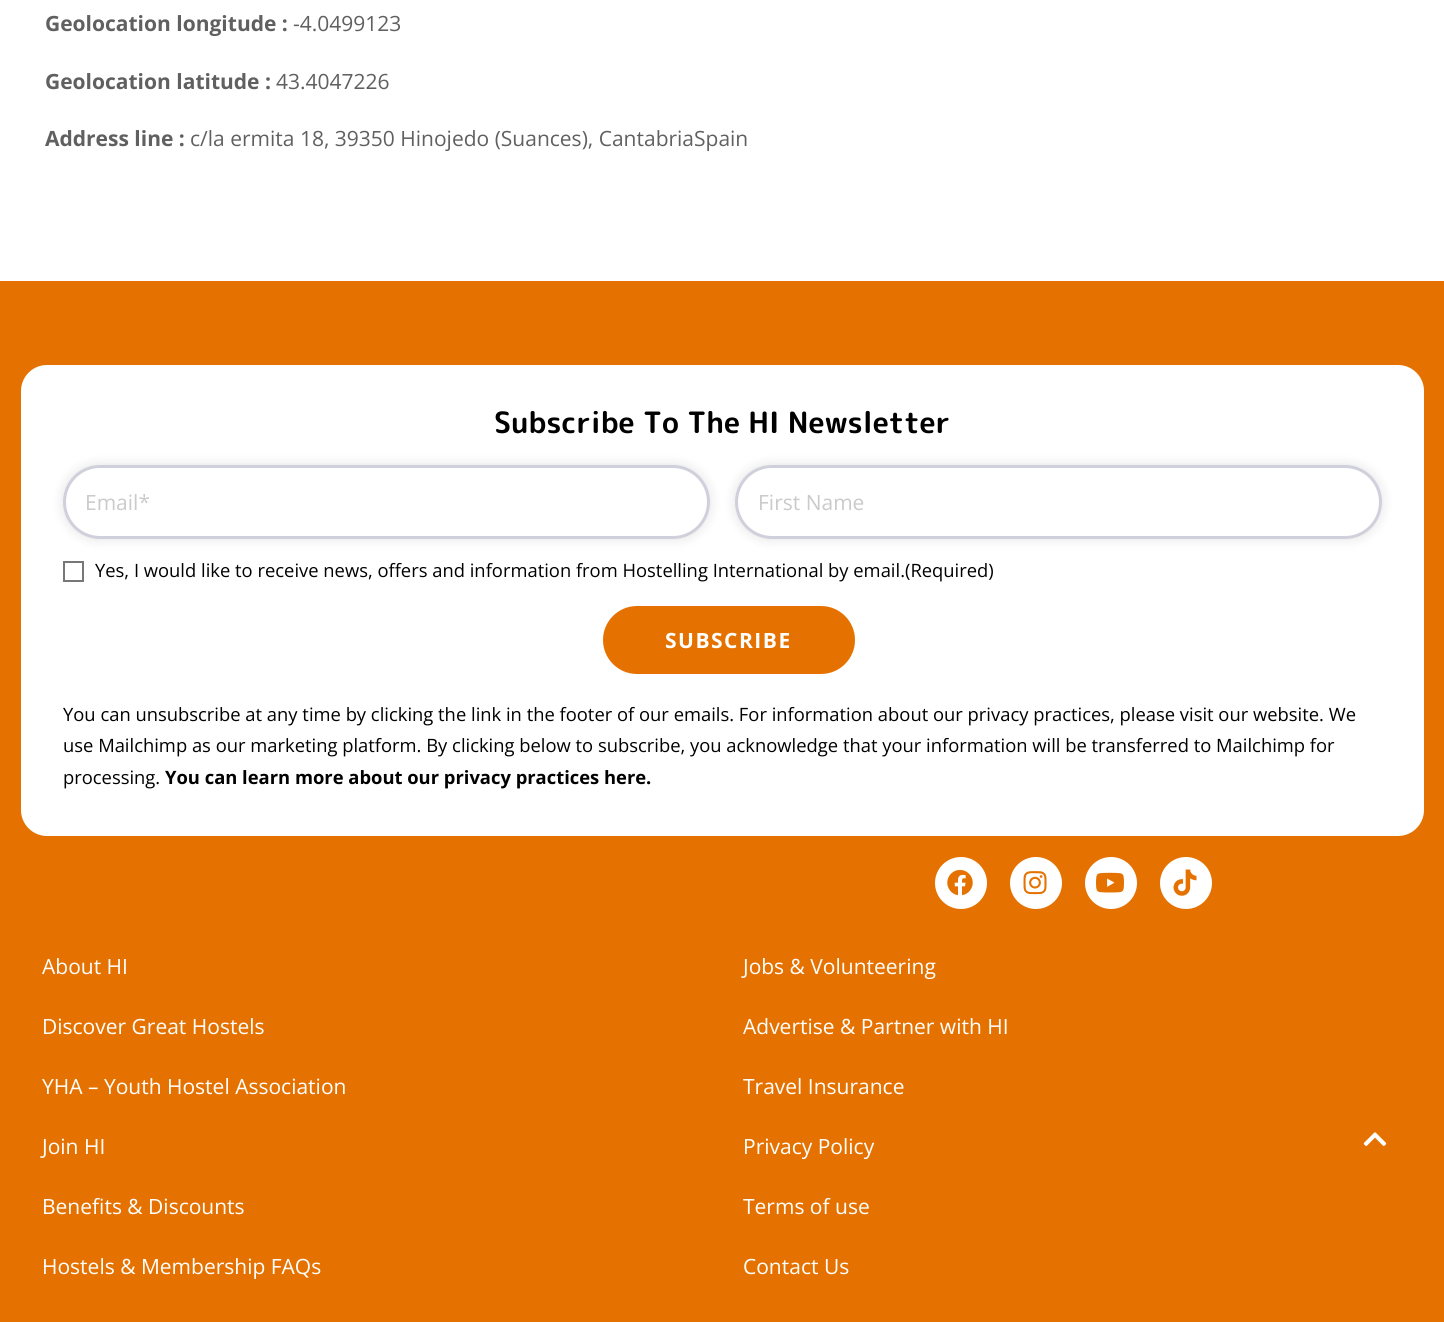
import math
import cairo

surface = cairo.ImageSurface(cairo.FORMAT_RGB24, 1444, 1322)
ctx = cairo.Context(surface)
options = cairo.FontOptions()
options.set_hint_metrics(cairo.HINT_METRICS_OFF)
options.set_hint_style(cairo.HINT_STYLE_NONE)
ctx.set_font_options(options)
ctx.set_miter_limit(4)


def set_color(code):
    ctx.set_source_rgb(*(v / 255 for v in bytes.fromhex(code[-6:])))


def draw_text(x, y, s, family, size, color, bold=False, italic=False):
    ctx.select_font_face(family, cairo.FONT_SLANT_ITALIC if italic else cairo.FONT_SLANT_NORMAL, cairo.FONT_WEIGHT_BOLD if bold else cairo.FONT_WEIGHT_NORMAL)
    ctx.set_font_size(size)
    set_color(color)
    ctx.move_to(x, y)
    ctx.show_text(s)


def draw_spaced(x, y, s, letter, word):
    ctx.move_to(x, y)
    for ch in s:
        ctx.show_text(ch)
        ctx.rel_move_to(letter + word * (ch == ' '), 0)


def fill_rect(x, y, w, h, color):
    set_color(color)
    ctx.rectangle(x, y, w, h)
    ctx.fill()


def rounded_rect(x, y, w, h, r):
    ctx.new_sub_path()
    for i, (u, v) in enumerate([(x + w - r, y + h - r), (x + r, y + h - r), (x + r, y + r), (x + w - r, y + r)]):
        ctx.arc(u, v, r, i * math.pi / 2, (i + 1) * math.pi / 2)
    ctx.close_path()


def draw_shadow(x, y, w, h, r, blur, alpha):
    ctx.push_group_with_content(cairo.CONTENT_ALPHA)
    ctx.set_operator(cairo.OPERATOR_SOURCE)
    for i in range(15, -16, -2):
        e = blur * i / 6
        if min(w, h) + 2 * e > 0:
            ctx.set_source_rgba(0, 0, 0, alpha * math.erfc((i - 1) / 8.5) / 2)
            rounded_rect(x - e, y - e, w + 2 * e, h + 2 * e, max(0, min(r + e + blur * .6, min(w, h) / 2 + e)))
            ctx.fill()
    ctx.mask(ctx.pop_group())


def draw_image(path, x, y, w, h):
    ctx.save()
    ctx.set_source_surface(cairo.ImageSurface.create_from_png(path), x, y)
    ctx.rectangle(x, y, w, h)
    ctx.fill()
    ctx.restore()


set_color("#ffffff")
ctx.paint()
draw_text(45, 31, "Geolocation longitude :", "Open Sans", 21, "#606060", bold=True)
draw_text(293, 31, "-4.0499123", "Open Sans", 21, "#606060")
draw_text(45, 89, "Geolocation latitude :", "Open Sans", 21, "#606060", bold=True)
draw_text(276, 89, "43.4047226", "Open Sans", 21, "#606060")
draw_text(45, 146, "Address line :", "Open Sans", 21, "#606060", bold=True)
draw_text(190, 146, "c/la ermita 18, 39350 Hinojedo (Suances), CantabriaSpain", "Open Sans", 21, "#606060")
fill_rect(0, 281, 1444, 1041, "#e57200")
set_color("#ffffff")
rounded_rect(21, 365, 1403, 471, 26)
ctx.fill()
draw_text(494, 433, "Subscribe To The HI Newsletter", "Rounded Mplus 1c Bold", 29.4, "#000000", bold=True)
set_color("#000000")
draw_shadow(65, 467, 643, 70, 35, 7, 0.15)
set_color("#ffffff")
rounded_rect(64.5, 466.5, 644, 71, 35.5)
ctx.fill_preserve()
set_color("#d0d0dc")
ctx.set_line_width(3)
ctx.stroke()
draw_text(85, 510, "Email*", "Open Sans", 21, "#cacaca")
set_color("#000000")
draw_shadow(737, 467, 643, 70, 35, 7, 0.15)
set_color("#ffffff")
rounded_rect(736.5, 466.5, 644, 71, 35.5)
ctx.fill_preserve()
set_color("#d0d0dc")
ctx.stroke()
draw_text(758, 510, "First Name", "Open Sans", 21, "#cacaca")
ctx.rectangle(64, 562, 19, 19)
set_color("#777777")
ctx.set_line_width(2)
ctx.stroke()
draw_text(95, 577, "Yes, I would like to receive news, offers and information from Hostelling International by email.(Required)", "Open Sans", 18.38, "#000000")
set_color("#e57200")
rounded_rect(603, 606, 252, 68, 34)
ctx.fill()
ctx.select_font_face("Open Sans", cairo.FONT_SLANT_NORMAL, cairo.FONT_WEIGHT_BOLD)
ctx.set_font_size(21)
set_color("#ffffff")
draw_spaced(665, 648, "SUBSCRIBE", 1.5, 0)
draw_text(63, 721, "You can unsubscribe at any time by clicking the link in the footer of our emails. For information about our privacy practices, please visit our website. We", "Open Sans", 18.38, "#000000")
draw_text(63, 752, "use Mailchimp as our marketing platform. By clicking below to subscribe, you acknowledge that your information will be transferred to Mailchimp for", "Open Sans", 18.38, "#000000")
draw_text(63, 784, "processing.", "Open Sans", 18.38, "#000000")
draw_text(165, 784, "You can learn more about our privacy practices here.", "Open Sans", 18.38, "#000000", bold=True)
draw_text(42, 974, "About HI", "Open Sans", 21, "#ffffff")
draw_text(42, 1034, "Discover Great Hostels", "Open Sans", 21, "#ffffff")
draw_text(42, 1094, "YHA – Youth Hostel Association", "Open Sans", 21, "#ffffff")
draw_text(42, 1154, "Join HI", "Open Sans", 21, "#ffffff")
draw_text(42, 1214, "Benefits & Discounts", "Open Sans", 21, "#ffffff")
draw_text(42, 1274, "Hostels & Membership FAQs", "Open Sans", 21, "#ffffff")
draw_text(743, 974, "Jobs & Volunteering", "Open Sans", 21, "#ffffff")
draw_text(743, 1034, "Advertise & Partner with HI", "Open Sans", 21, "#ffffff")
draw_text(743, 1094, "Travel Insurance", "Open Sans", 21, "#ffffff")
draw_text(743, 1154, "Privacy Policy", "Open Sans", 21, "#ffffff")
draw_text(743, 1214, "Terms of use", "Open Sans", 21, "#ffffff")
draw_text(743, 1274, "Contact Us", "Open Sans", 21, "#ffffff")
ctx.new_path()
ctx.arc(961, 883, 26, 0, 2 * math.pi)
ctx.fill()
draw_image("assets/img1.png", 947, 869, 26, 27)
ctx.arc(1036, 883, 26, 0, 2 * math.pi)
ctx.fill()
draw_image("assets/img2.png", 1023, 871, 24, 24)
ctx.arc(1111, 883, 26, 0, 2 * math.pi)
ctx.fill()
draw_image("assets/img3.png", 1096, 872, 28, 21)
ctx.arc(1186, 883, 26, 0, 2 * math.pi)
ctx.fill()
draw_image("assets/img4.png", 1173, 869, 24, 27)
draw_image("assets/img5.png", 1363, 1132, 24, 14)
surface.write_to_png("output.png")
